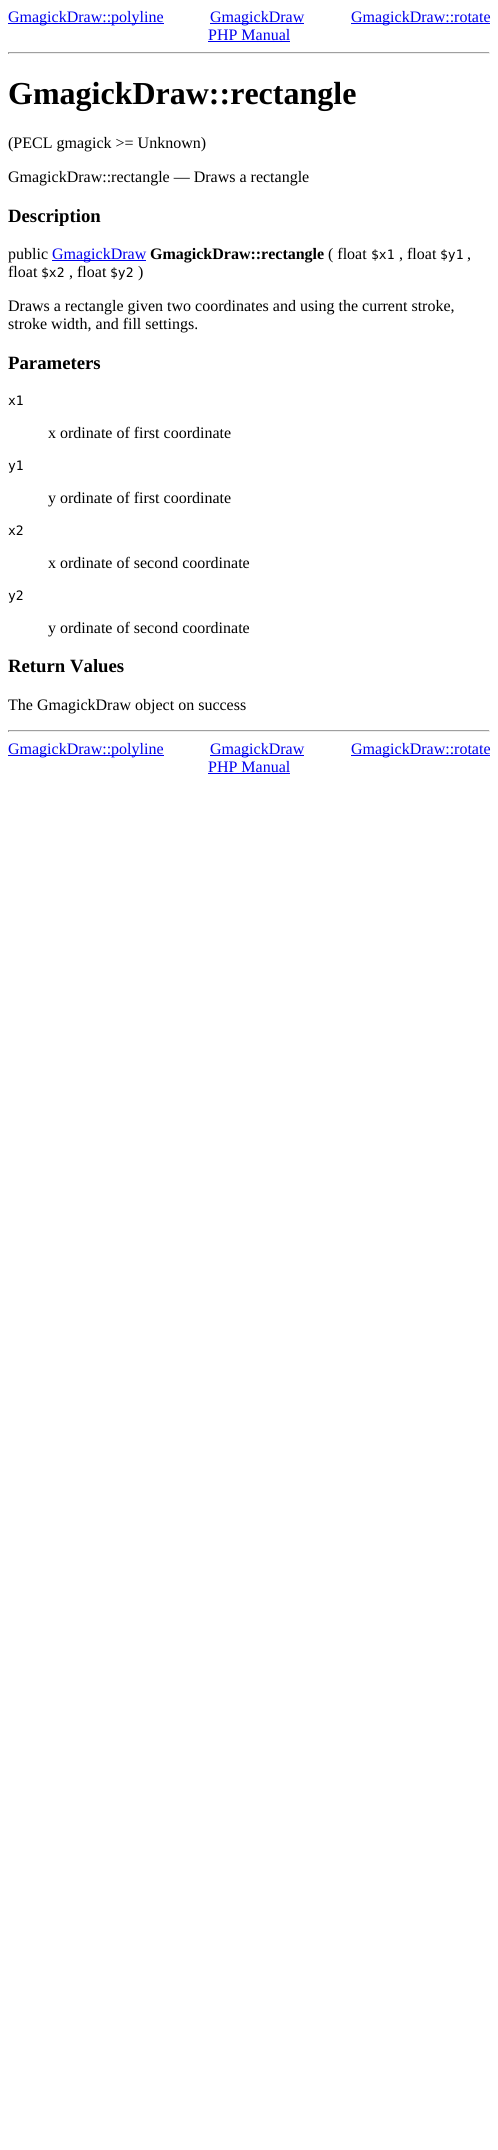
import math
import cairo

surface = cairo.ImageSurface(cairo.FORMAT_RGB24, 498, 2150)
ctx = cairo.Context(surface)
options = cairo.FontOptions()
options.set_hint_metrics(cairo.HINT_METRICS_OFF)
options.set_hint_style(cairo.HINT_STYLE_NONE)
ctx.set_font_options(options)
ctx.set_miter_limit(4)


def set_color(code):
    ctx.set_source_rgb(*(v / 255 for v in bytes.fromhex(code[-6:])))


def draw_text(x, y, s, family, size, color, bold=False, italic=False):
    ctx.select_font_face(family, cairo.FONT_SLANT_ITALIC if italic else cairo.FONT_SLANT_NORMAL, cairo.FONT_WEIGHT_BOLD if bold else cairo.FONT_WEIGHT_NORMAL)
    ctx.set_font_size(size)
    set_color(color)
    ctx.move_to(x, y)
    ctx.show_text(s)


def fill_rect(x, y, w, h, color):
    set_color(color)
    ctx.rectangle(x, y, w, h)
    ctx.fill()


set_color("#ffffff")
ctx.paint()
fill_rect(8, 23, 156, 1, "#0000ee")
draw_text(8, 22, "GmagickDraw::polyline", "Liberation Serif", 16, "#0000ee")
fill_rect(210, 23, 94, 1, "#0000ee")
draw_text(210, 22, "GmagickDraw", "Liberation Serif", 16, "#0000ee")
fill_rect(351, 23, 139, 1, "#0000ee")
draw_text(351, 22, "GmagickDraw::rotate", "Liberation Serif", 16, "#0000ee")
draw_text(208, 40, "PHP Manual", "Liberation Serif", 16, "#0000ee")
fill_rect(208, 41, 82, 1, "#0000ee")
fill_rect(8, 52, 482, 1, "#9f9f9f")
fill_rect(489, 52, 1, 2, "#eeeeee")
fill_rect(8, 53, 482, 1, "#eeeeee")
fill_rect(8, 52, 1, 2, "#9f9f9f")
draw_text(8, 104, "GmagickDraw::rectangle", "Liberation Serif", 32, "#000000", bold=True)
draw_text(8, 148, "(PECL gmagick >= Unknown)", "Liberation Serif", 16, "#000000")
draw_text(8, 182, "GmagickDraw::rectangle — Draws a rectangle", "Liberation Serif", 16, "#000000")
draw_text(8, 222, "Description", "Liberation Serif", 18.75, "#000000", bold=True)
draw_text(8, 259, "public", "Liberation Serif", 16, "#000000")
fill_rect(52, 260, 94, 1, "#0000ee")
draw_text(52, 259, "GmagickDraw", "Liberation Serif", 16, "#0000ee")
draw_text(150, 259, "GmagickDraw::rectangle", "Liberation Serif", 16, "#000000", bold=True)
draw_text(328, 259, "( float", "Liberation Serif", 16, "#000000")
draw_text(371, 259, "$x1", "DejaVu Sans Mono", 13, "#000000")
draw_text(399, 259, ", float", "Liberation Serif", 16, "#000000")
draw_text(440, 259, "$y1", "DejaVu Sans Mono", 13, "#000000")
draw_text(467, 259, ",", "Liberation Serif", 16, "#000000")
draw_text(8, 277, "float", "Liberation Serif", 16, "#000000")
draw_text(41, 277, "$x2", "DejaVu Sans Mono", 13, "#000000")
draw_text(69, 277, ", float", "Liberation Serif", 16, "#000000")
draw_text(110, 277, "$y2", "DejaVu Sans Mono", 13, "#000000")
draw_text(138, 277, ")", "Liberation Serif", 16, "#000000")
draw_text(8, 311, "Draws a rectangle given two coordinates and using the current stroke,", "Liberation Serif", 16, "#000000")
draw_text(8, 329, "stroke width, and fill settings.", "Liberation Serif", 16, "#000000")
draw_text(8, 369, "Parameters", "Liberation Serif", 18.75, "#000000", bold=True)
draw_text(8, 405, "x1", "DejaVu Sans Mono", 13, "#000000")
draw_text(48, 438, "x ordinate of first coordinate", "Liberation Serif", 16, "#000000")
draw_text(8, 470, "y1", "DejaVu Sans Mono", 13, "#000000")
draw_text(48, 503, "y ordinate of first coordinate", "Liberation Serif", 16, "#000000")
draw_text(8, 535, "x2", "DejaVu Sans Mono", 13, "#000000")
draw_text(48, 568, "x ordinate of second coordinate", "Liberation Serif", 16, "#000000")
draw_text(8, 600, "y2", "DejaVu Sans Mono", 13, "#000000")
draw_text(48, 633, "y ordinate of second coordinate", "Liberation Serif", 16, "#000000")
draw_text(8, 672, "Return Values", "Liberation Serif", 18.75, "#000000", bold=True)
draw_text(8, 710, "The GmagickDraw object on success", "Liberation Serif", 16, "#000000")
fill_rect(8, 730, 482, 1, "#9f9f9f")
fill_rect(489, 730, 1, 2, "#eeeeee")
fill_rect(8, 731, 482, 1, "#eeeeee")
fill_rect(8, 730, 1, 2, "#9f9f9f")
fill_rect(8, 755, 156, 1, "#0000ee")
draw_text(8, 754, "GmagickDraw::polyline", "Liberation Serif", 16, "#0000ee")
fill_rect(210, 755, 94, 1, "#0000ee")
draw_text(210, 754, "GmagickDraw", "Liberation Serif", 16, "#0000ee")
fill_rect(351, 755, 139, 1, "#0000ee")
draw_text(351, 754, "GmagickDraw::rotate", "Liberation Serif", 16, "#0000ee")
draw_text(208, 772, "PHP Manual", "Liberation Serif", 16, "#0000ee")
fill_rect(208, 773, 82, 1, "#0000ee")
surface.write_to_png("output.png")
